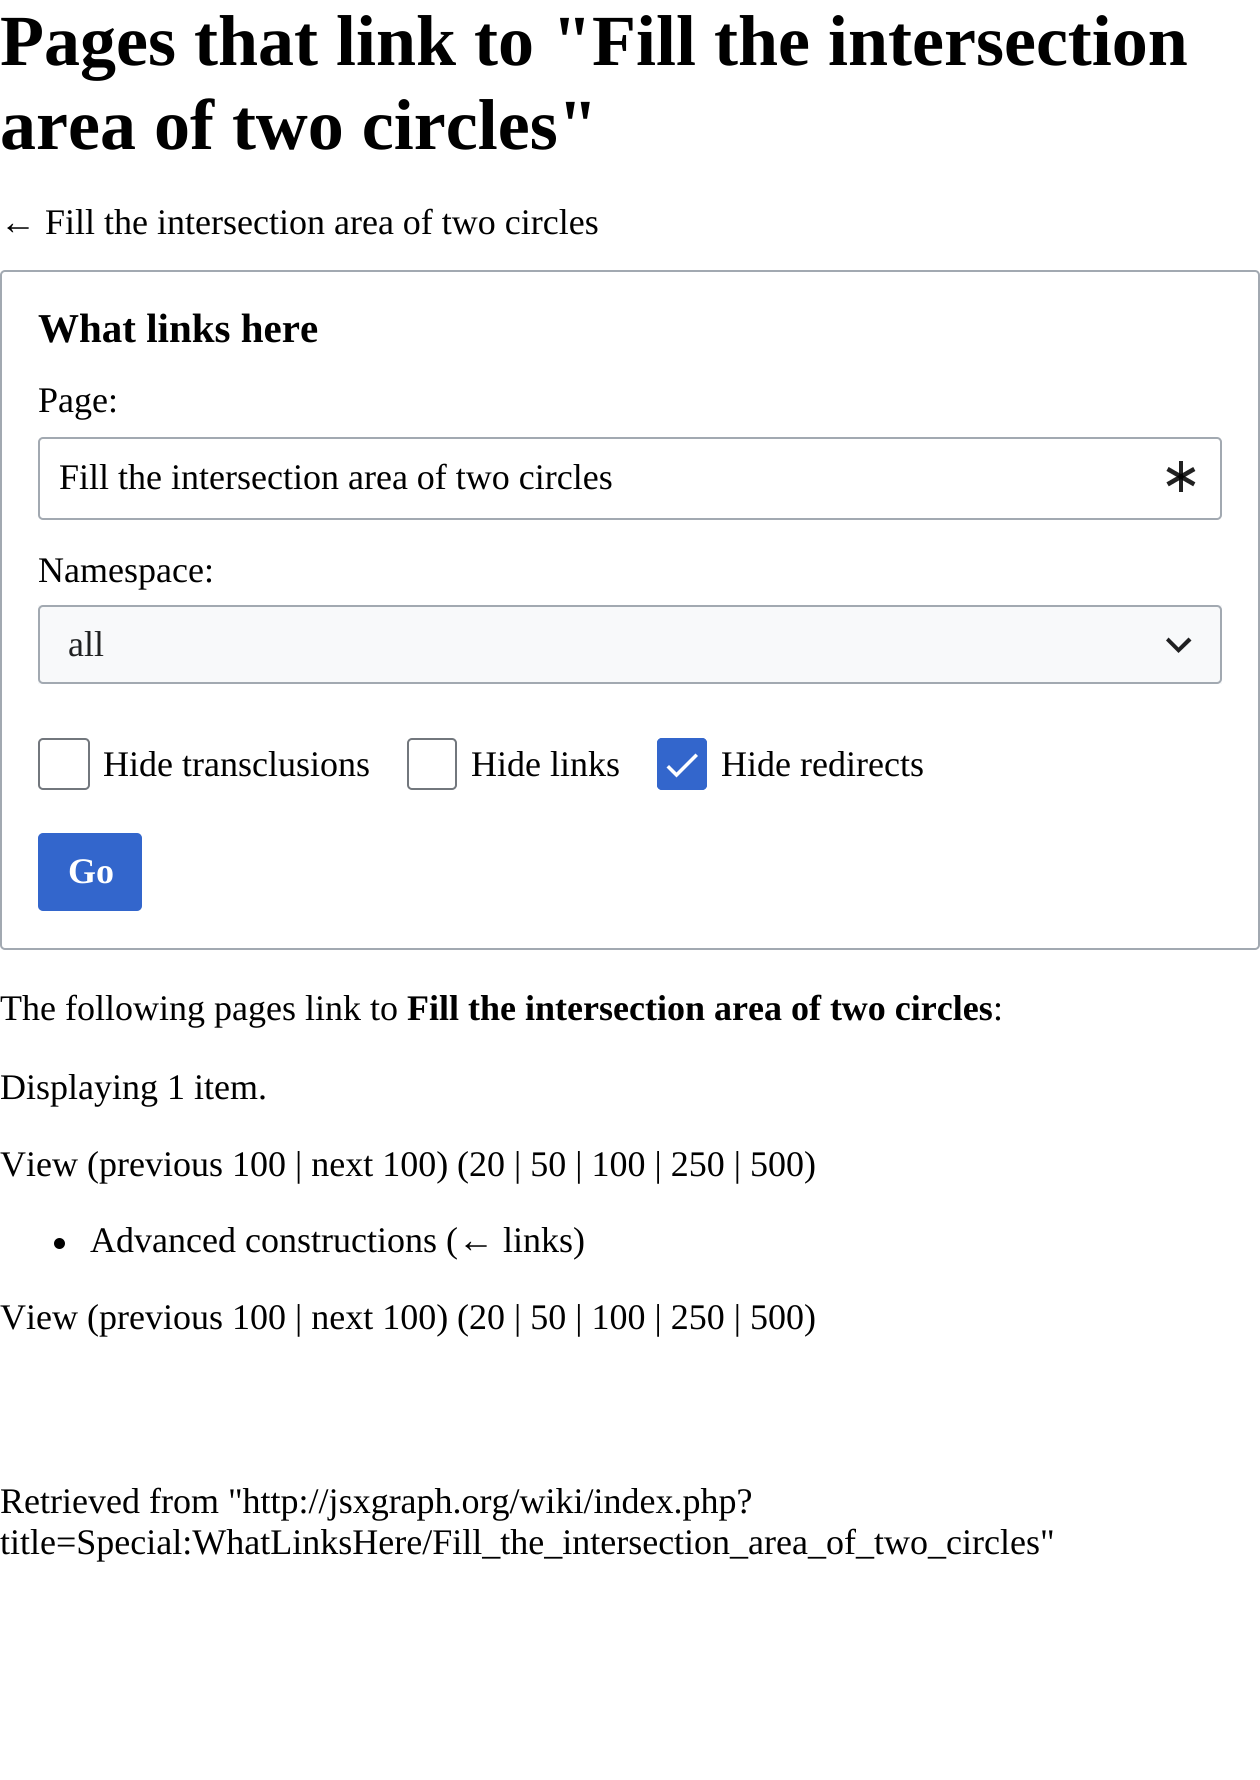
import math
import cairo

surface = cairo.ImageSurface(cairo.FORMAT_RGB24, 1260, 1780)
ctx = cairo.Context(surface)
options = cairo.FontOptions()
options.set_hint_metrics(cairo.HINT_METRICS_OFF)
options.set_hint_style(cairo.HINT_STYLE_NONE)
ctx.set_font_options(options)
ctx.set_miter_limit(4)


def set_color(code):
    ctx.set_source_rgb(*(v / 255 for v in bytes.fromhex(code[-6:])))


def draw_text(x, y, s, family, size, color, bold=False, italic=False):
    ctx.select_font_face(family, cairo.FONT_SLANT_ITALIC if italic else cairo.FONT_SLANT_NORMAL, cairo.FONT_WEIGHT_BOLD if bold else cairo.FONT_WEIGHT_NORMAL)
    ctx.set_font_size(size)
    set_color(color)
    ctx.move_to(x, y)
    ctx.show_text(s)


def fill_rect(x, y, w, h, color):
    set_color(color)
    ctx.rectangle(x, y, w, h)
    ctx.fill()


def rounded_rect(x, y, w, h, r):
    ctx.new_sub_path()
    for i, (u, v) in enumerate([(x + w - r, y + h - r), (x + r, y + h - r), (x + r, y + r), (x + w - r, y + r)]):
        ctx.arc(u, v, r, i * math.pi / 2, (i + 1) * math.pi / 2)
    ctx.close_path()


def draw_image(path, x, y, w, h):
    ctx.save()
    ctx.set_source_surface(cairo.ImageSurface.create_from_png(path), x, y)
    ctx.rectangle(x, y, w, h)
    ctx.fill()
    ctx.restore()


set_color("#ffffff")
ctx.paint()
draw_text(0, 65, "Pages that link to \"Fill the intersection", "Liberation Serif", 72, "#000000", bold=True)
draw_text(0, 149, "area of two circles\"", "Liberation Serif", 72, "#000000", bold=True)
draw_text(0, 234, "← Fill the intersection area of two circles", "Liberation Serif", 36, "#000000")
rounded_rect(1, 271, 1258, 678, 4)
set_color("#a2a9b1")
ctx.stroke()
draw_text(38, 342, "What links here", "Liberation Serif", 41, "#000000", bold=True)
draw_text(38, 412, "Page:", "Liberation Serif", 36, "#000000")
rounded_rect(39, 438, 1182, 81, 4)
set_color("#a2a9b1")
ctx.stroke()
draw_text(59, 489, "Fill the intersection area of two circles", "Liberation Serif", 36, "#000000")
draw_image("assets/img1.png", 1166, 461, 30, 31)
draw_text(38, 582, "Namespace:", "Liberation Serif", 36, "#000000")
fill_rect(38, 605, 1184, 79, "#f8f9fa")
rounded_rect(39, 606, 1182, 77, 4)
set_color("#a2a9b1")
ctx.stroke()
draw_text(68, 656, "all", "Liberation Serif", 36, "#202122")
set_color("#202021")
ctx.new_path()
ctx.move_to(1188.5, 637.5)
ctx.line_to(1178.5, 647.5)
ctx.line_to(1168.5, 637.5)
ctx.line_to(1166, 640.5)
ctx.line_to(1178.5, 653)
ctx.line_to(1191.5, 640.5)
ctx.close_path()
ctx.fill()
rounded_rect(39, 739, 50, 50, 4)
set_color("#72777d")
ctx.stroke()
draw_text(103, 776, "Hide transclusions", "Liberation Serif", 36, "#000000")
rounded_rect(408, 739, 48, 50, 4)
set_color("#72777d")
ctx.stroke()
draw_text(471, 776, "Hide links", "Liberation Serif", 36, "#000000")
set_color("#3366cc")
rounded_rect(657, 738, 50, 52, 5)
ctx.fill()
set_color("#ffffff")
ctx.new_path()
ctx.move_to(676.5, 772.5)
ctx.line_to(669, 765)
ctx.line_to(666.5, 767.5)
ctx.line_to(676.5, 777.5)
ctx.line_to(698, 756)
ctx.line_to(695.5, 753.5)
ctx.close_path()
ctx.fill()
rounded_rect(658, 739, 48, 50, 4)
set_color("#3366cc")
ctx.stroke()
draw_text(721, 776, "Hide redirects", "Liberation Serif", 36, "#000000")
set_color("#3366cc")
rounded_rect(39, 834, 102, 76, 4)
ctx.fill_preserve()
ctx.stroke()
draw_text(68, 883, "Go", "Liberation Serif", 36, "#ffffff", bold=True)
draw_text(0, 1020, "The following pages link to", "Liberation Serif", 36, "#000000")
draw_text(407, 1020, "Fill the intersection area of two circles", "Liberation Serif", 36, "#000000", bold=True)
draw_text(993, 1020, ":", "Liberation Serif", 36, "#000000")
draw_text(0, 1099, "Displaying 1 item.", "Liberation Serif", 36, "#000000")
draw_text(0, 1176, "View (previous 100 | next 100) (20 | 50 | 100 | 250 | 500)", "Liberation Serif", 36, "#000000")
ctx.new_path()
ctx.arc(59.5, 1243.5, 5.5, 0, 2 * math.pi)
ctx.fill()
draw_text(90, 1252, "Advanced constructions (← links)", "Liberation Serif", 36, "#000000")
draw_text(0, 1329, "View (previous 100 | next 100) (20 | 50 | 100 | 250 | 500)", "Liberation Serif", 36, "#000000")
draw_text(0, 1513, "Retrieved from \"http://jsxgraph.org/wiki/index.php?", "Liberation Serif", 36, "#000000")
draw_text(0, 1554, "title=Special:WhatLinksHere/Fill_the_intersection_area_of_two_circles\"", "Liberation Serif", 36, "#000000")
surface.write_to_png("output.png")
